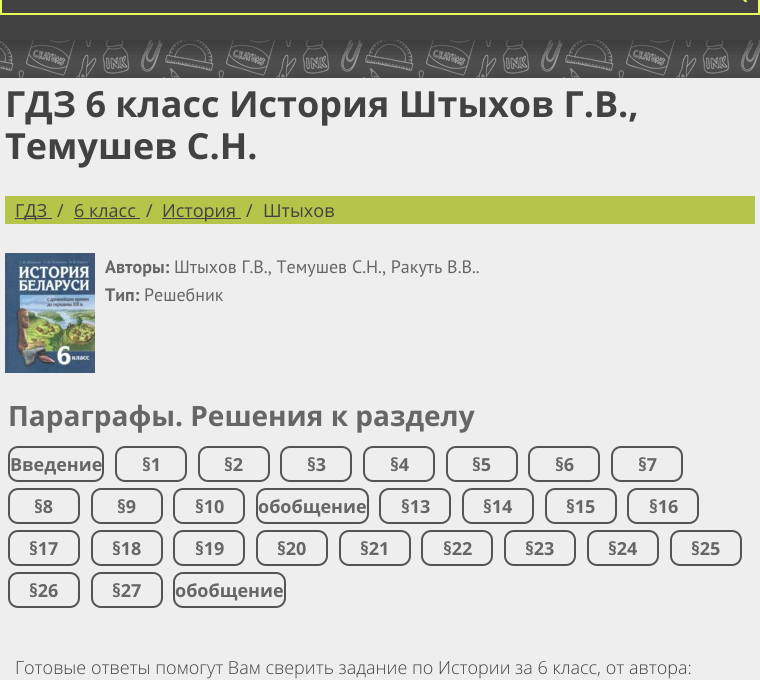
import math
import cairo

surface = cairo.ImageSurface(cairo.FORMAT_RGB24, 760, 680)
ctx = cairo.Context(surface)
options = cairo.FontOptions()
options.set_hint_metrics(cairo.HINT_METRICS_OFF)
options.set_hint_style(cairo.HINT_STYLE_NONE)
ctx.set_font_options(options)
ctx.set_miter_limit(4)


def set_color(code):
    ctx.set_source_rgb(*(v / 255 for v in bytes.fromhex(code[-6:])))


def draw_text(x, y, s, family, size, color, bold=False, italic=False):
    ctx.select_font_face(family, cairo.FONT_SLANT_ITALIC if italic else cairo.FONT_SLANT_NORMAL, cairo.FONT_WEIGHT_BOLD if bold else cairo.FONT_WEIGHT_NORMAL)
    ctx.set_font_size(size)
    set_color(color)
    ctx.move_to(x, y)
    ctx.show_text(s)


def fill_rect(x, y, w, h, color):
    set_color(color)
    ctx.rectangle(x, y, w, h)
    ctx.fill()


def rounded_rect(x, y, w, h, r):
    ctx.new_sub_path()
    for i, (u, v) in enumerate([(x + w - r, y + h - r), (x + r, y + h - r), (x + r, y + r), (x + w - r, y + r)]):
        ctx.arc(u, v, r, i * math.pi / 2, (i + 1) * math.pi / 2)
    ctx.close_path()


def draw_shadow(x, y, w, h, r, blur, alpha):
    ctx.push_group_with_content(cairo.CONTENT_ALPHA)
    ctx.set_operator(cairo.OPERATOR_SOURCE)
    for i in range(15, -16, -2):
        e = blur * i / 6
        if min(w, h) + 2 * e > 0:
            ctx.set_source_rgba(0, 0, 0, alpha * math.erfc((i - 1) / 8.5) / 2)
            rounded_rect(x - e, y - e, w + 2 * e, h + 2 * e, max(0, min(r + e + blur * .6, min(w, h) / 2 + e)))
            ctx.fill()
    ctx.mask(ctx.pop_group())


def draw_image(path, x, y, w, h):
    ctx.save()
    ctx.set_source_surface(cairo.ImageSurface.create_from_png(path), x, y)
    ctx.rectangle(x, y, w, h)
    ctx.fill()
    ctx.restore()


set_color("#ffffff")
ctx.paint()
draw_image("assets/img1.png", 0, 40, 760, 38)
set_color("#323232")
draw_shadow(-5, 76, 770, 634, 0, 10, 0.75)
fill_rect(0, 78, 760, 602, "#eeeeee")
set_color("#323232")
draw_shadow(-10, -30, 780, 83, 0, 10, 0.75)
fill_rect(0, 0, 760, 40, "#424242")
ctx.rectangle(1, -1, 758, 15)
set_color("#e8fe57")
ctx.stroke()
draw_image("assets/img2.png", 743, 0, 4, 3)
draw_text(5, 117, "ГДЗ 6 класс История Штыхов Г.В.,", "Open Sans", 36, "#424242", bold=True)
draw_text(5, 159, "Темушев С.Н.", "Open Sans", 36, "#424242", bold=True)
fill_rect(5, 196, 750, 28, "#b5c549")
fill_rect(15, 218, 37, 1, "#424242")
draw_text(15, 217, "ГДЗ", "Open Sans", 18, "#424242")
draw_text(57, 217, "/", "Open Sans", 18, "#424242")
draw_text(74, 217, "6 класс", "Open Sans", 18, "#424242")
fill_rect(74, 218, 66, 1, "#424242")
draw_text(146, 217, "/", "Open Sans", 18, "#424242")
fill_rect(162, 218, 79, 1, "#424242")
draw_text(162, 217, "История", "Open Sans", 18, "#424242")
draw_text(246, 217, "/", "Open Sans", 18, "#424242")
draw_text(263, 217, "Штыхов", "Open Sans", 18, "#424242")
draw_image("assets/img3.png", 5, 253, 90, 120)
draw_text(105, 273, "Авторы:", "PT Sans", 18, "#666666", bold=True)
draw_text(174, 273, "Штыхов Г.В., Темушев С.Н., Ракуть В.В..", "PT Sans", 18, "#666666")
draw_text(105, 301, "Тип:", "PT Sans", 18, "#666666", bold=True)
draw_text(144, 301, "Решебник", "PT Sans", 18, "#666666")
draw_text(8, 426, "Параграфы. Решения к разделу", "Open Sans", 28, "#666666", bold=True)
rounded_rect(9, 447, 94, 34, 9)
set_color("#545454")
ctx.stroke()
draw_text(10, 471, "Введение", "Open Sans", 18, "#666666", bold=True)
rounded_rect(116, 447, 70, 34, 9)
set_color("#545454")
ctx.stroke()
draw_text(142, 471, "§1", "Open Sans", 18, "#666666", bold=True)
rounded_rect(199, 447, 70, 34, 9)
set_color("#545454")
ctx.stroke()
draw_text(224, 471, "§2", "Open Sans", 18, "#666666", bold=True)
rounded_rect(281, 447, 70, 34, 9)
set_color("#545454")
ctx.stroke()
draw_text(307, 471, "§3", "Open Sans", 18, "#666666", bold=True)
rounded_rect(364, 447, 70, 34, 9)
set_color("#545454")
ctx.stroke()
draw_text(390, 471, "§4", "Open Sans", 18, "#666666", bold=True)
rounded_rect(447, 447, 70, 34, 9)
set_color("#545454")
ctx.stroke()
draw_text(472, 471, "§5", "Open Sans", 18, "#666666", bold=True)
rounded_rect(529, 447, 70, 34, 9)
set_color("#545454")
ctx.stroke()
draw_text(555, 471, "§6", "Open Sans", 18, "#666666", bold=True)
rounded_rect(612, 447, 70, 34, 9)
set_color("#545454")
ctx.stroke()
draw_text(638, 471, "§7", "Open Sans", 18, "#666666", bold=True)
rounded_rect(9, 489, 70, 34, 9)
set_color("#545454")
ctx.stroke()
draw_text(34, 513, "§8", "Open Sans", 18, "#666666", bold=True)
rounded_rect(92, 489, 70, 34, 9)
set_color("#545454")
ctx.stroke()
draw_text(117, 513, "§9", "Open Sans", 18, "#666666", bold=True)
rounded_rect(174, 489, 70, 34, 9)
set_color("#545454")
ctx.stroke()
draw_text(195, 513, "§10", "Open Sans", 18, "#666666", bold=True)
rounded_rect(257, 489, 111, 34, 9)
set_color("#545454")
ctx.stroke()
draw_text(258, 513, "обобщение", "Open Sans", 18, "#666666", bold=True)
rounded_rect(380, 489, 70, 34, 9)
set_color("#545454")
ctx.stroke()
draw_text(401, 513, "§13", "Open Sans", 18, "#666666", bold=True)
rounded_rect(463, 489, 70, 34, 9)
set_color("#545454")
ctx.stroke()
draw_text(483, 513, "§14", "Open Sans", 18, "#666666", bold=True)
rounded_rect(546, 489, 70, 34, 9)
set_color("#545454")
ctx.stroke()
draw_text(566, 513, "§15", "Open Sans", 18, "#666666", bold=True)
rounded_rect(628, 489, 70, 34, 9)
set_color("#545454")
ctx.stroke()
draw_text(649, 513, "§16", "Open Sans", 18, "#666666", bold=True)
rounded_rect(9, 531, 70, 34, 9)
set_color("#545454")
ctx.stroke()
draw_text(29, 555, "§17", "Open Sans", 18, "#666666", bold=True)
rounded_rect(92, 531, 70, 34, 9)
set_color("#545454")
ctx.stroke()
draw_text(112, 555, "§18", "Open Sans", 18, "#666666", bold=True)
rounded_rect(174, 531, 70, 34, 9)
set_color("#545454")
ctx.stroke()
draw_text(195, 555, "§19", "Open Sans", 18, "#666666", bold=True)
rounded_rect(257, 531, 70, 34, 9)
set_color("#545454")
ctx.stroke()
draw_text(277, 555, "§20", "Open Sans", 18, "#666666", bold=True)
rounded_rect(340, 531, 70, 34, 9)
set_color("#545454")
ctx.stroke()
draw_text(360, 555, "§21", "Open Sans", 18, "#666666", bold=True)
rounded_rect(422, 531, 70, 34, 9)
set_color("#545454")
ctx.stroke()
draw_text(443, 555, "§22", "Open Sans", 18, "#666666", bold=True)
rounded_rect(505, 531, 70, 34, 9)
set_color("#545454")
ctx.stroke()
draw_text(525, 555, "§23", "Open Sans", 18, "#666666", bold=True)
rounded_rect(588, 531, 70, 34, 9)
set_color("#545454")
ctx.stroke()
draw_text(608, 555, "§24", "Open Sans", 18, "#666666", bold=True)
rounded_rect(671, 531, 70, 34, 9)
set_color("#545454")
ctx.stroke()
draw_text(691, 555, "§25", "Open Sans", 18, "#666666", bold=True)
rounded_rect(9, 573, 70, 34, 9)
set_color("#545454")
ctx.stroke()
draw_text(29, 597, "§26", "Open Sans", 18, "#666666", bold=True)
rounded_rect(92, 573, 70, 34, 9)
set_color("#545454")
ctx.stroke()
draw_text(112, 597, "§27", "Open Sans", 18, "#666666", bold=True)
rounded_rect(174, 573, 111, 34, 9)
set_color("#545454")
ctx.stroke()
draw_text(175, 597, "обобщение", "Open Sans", 18, "#666666", bold=True)
draw_text(15, 674, "Готовые ответы помогут Вам сверить задание по Истории за 6 класс, от автора:", "Open Sans Light", 18, "#424242")
surface.write_to_png("output.png")
